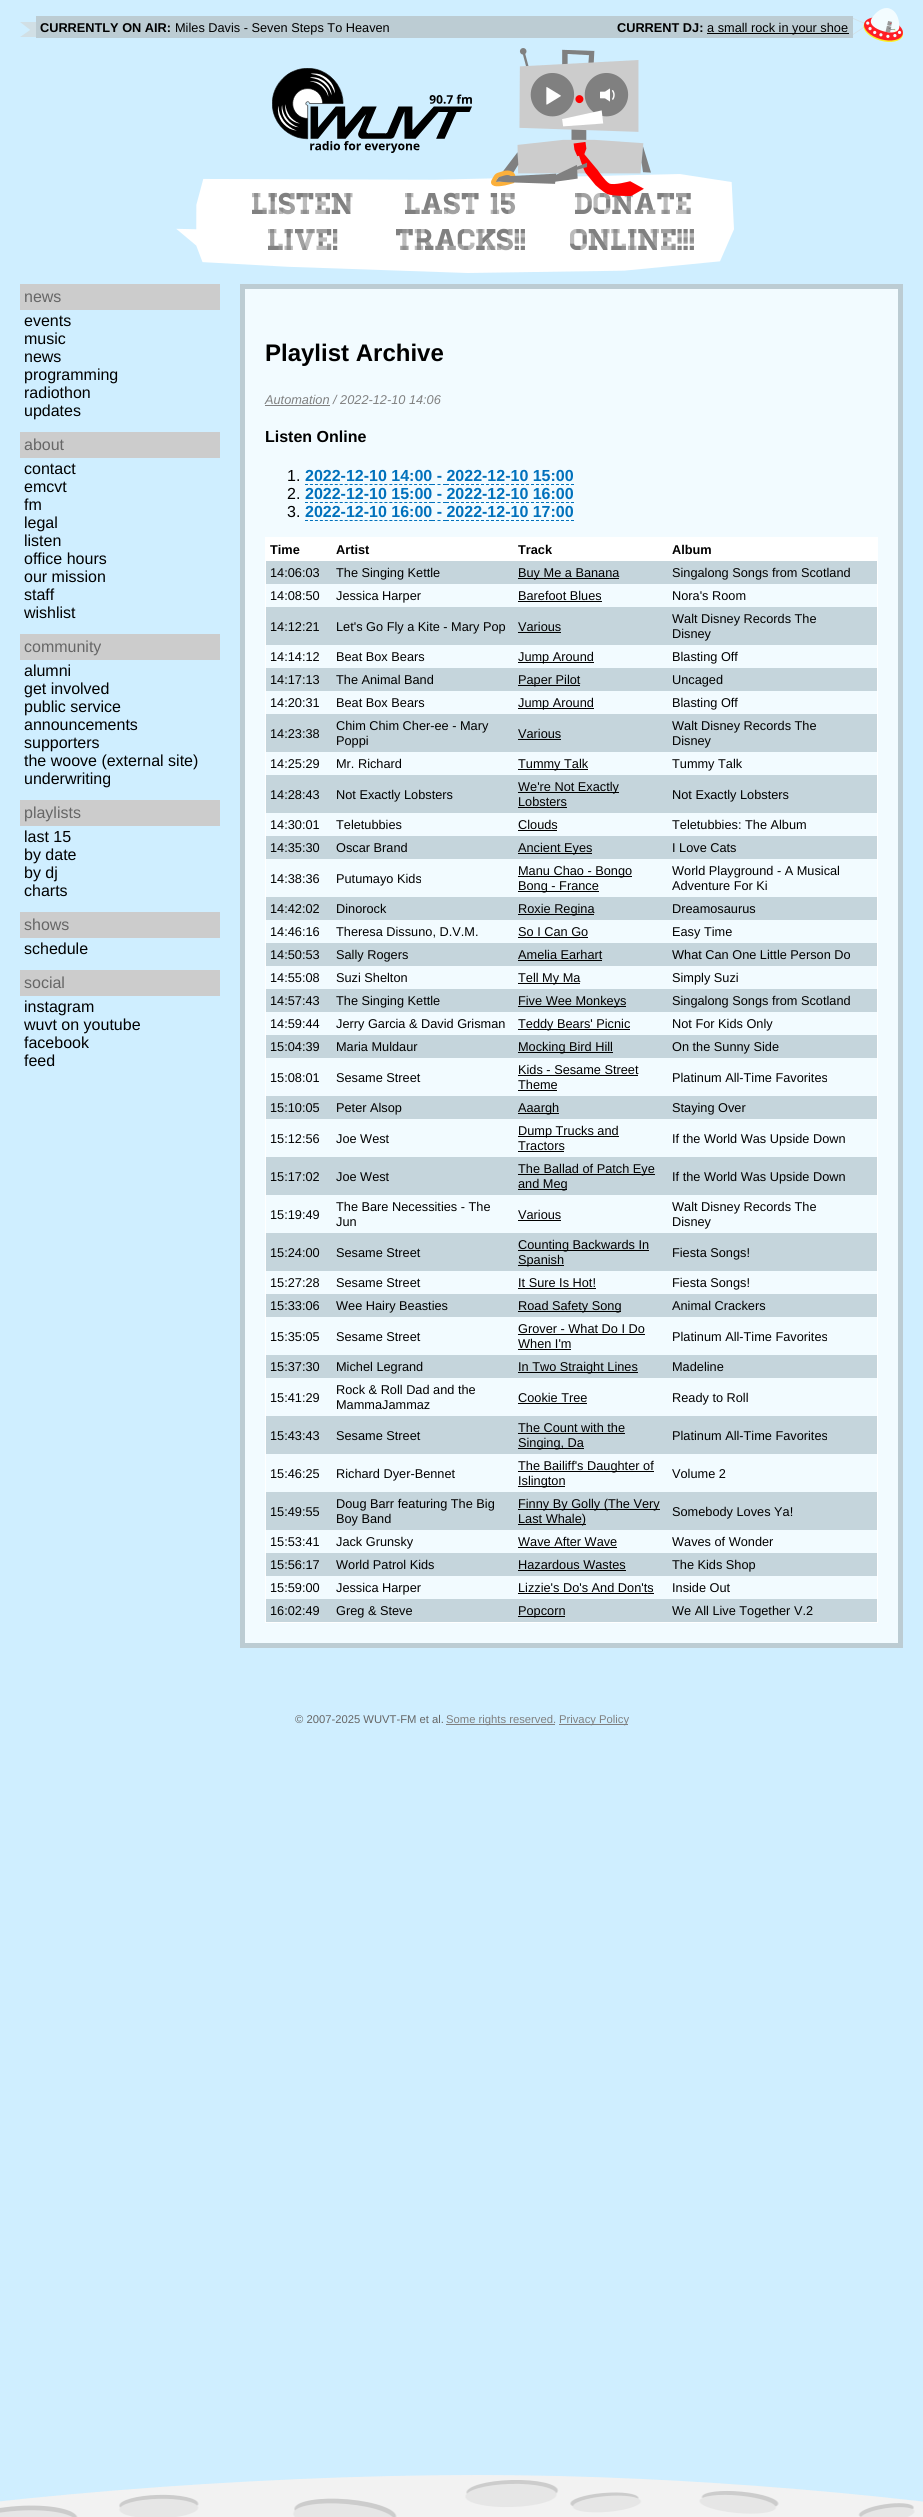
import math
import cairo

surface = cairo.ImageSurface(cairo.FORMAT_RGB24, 923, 2517)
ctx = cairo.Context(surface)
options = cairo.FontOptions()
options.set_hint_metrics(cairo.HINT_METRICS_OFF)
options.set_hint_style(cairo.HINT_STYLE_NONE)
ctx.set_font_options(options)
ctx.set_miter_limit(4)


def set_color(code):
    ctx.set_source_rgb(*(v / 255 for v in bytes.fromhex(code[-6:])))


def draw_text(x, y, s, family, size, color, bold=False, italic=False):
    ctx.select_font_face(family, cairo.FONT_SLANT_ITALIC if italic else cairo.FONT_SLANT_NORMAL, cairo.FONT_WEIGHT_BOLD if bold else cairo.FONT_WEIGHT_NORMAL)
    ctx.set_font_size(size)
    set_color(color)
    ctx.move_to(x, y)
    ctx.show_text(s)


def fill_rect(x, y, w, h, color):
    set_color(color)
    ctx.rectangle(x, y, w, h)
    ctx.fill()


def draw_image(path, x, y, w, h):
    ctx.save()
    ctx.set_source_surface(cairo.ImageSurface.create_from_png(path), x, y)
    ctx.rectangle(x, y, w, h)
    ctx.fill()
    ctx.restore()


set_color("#cfeeff")
ctx.paint()
draw_image("assets/img1.png", 0, 2475, 923, 42)
draw_image("assets/img2.png", 20, 8, 883, 34)
fill_rect(36, 16, 817, 22, "#bcccd3")
draw_text(40, 32, "CURRENTLY ON AIR:", "Liberation Sans", 12.75, "#000000", bold=True)
draw_text(175, 32, "Miles Davis - Seven Steps To Heaven", "Liberation Sans", 12.75, "#000000")
draw_text(617, 32, "CURRENT DJ:", "Liberation Sans", 12.75, "#000000", bold=True)
fill_rect(707, 33, 142, 1, "#000000")
draw_text(707, 32, "a small rock in your shoe", "Liberation Sans", 12.75, "#000000")
draw_image("assets/img3.png", 272, 68, 200, 85)
draw_image("assets/img7.png", 176, 174, 558, 99)
draw_text(405, 214, "LAST 15", "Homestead", 30, "#808080")
draw_text(575, 214, "DONATE", "Homestead", 30, "#808080")
draw_image("assets/img4.png", 491, 48, 160, 148)
draw_image("assets/img5.png", 546, 87, 15, 18)
draw_image("assets/img6.png", 600, 88, 15, 14)
draw_text(252, 214, "LISTEN", "Homestead", 30, "#808080")
draw_text(268, 250, "LIVE!", "Homestead", 30, "#808080")
draw_text(396, 250, "TRACKS!!", "Homestead", 30, "#808080")
draw_text(570, 250, "ONLINE!!!", "Homestead", 30, "#808080")
fill_rect(20, 284, 200, 26, "#cccccc")
draw_text(24, 302, "news", "Liberation Sans", 16, "#666666")
draw_text(24, 326, "events", "Liberation Sans", 16, "#000000")
draw_text(24, 344, "music", "Liberation Sans", 16, "#000000")
draw_text(24, 362, "news", "Liberation Sans", 16, "#000000")
draw_text(24, 380, "programming", "Liberation Sans", 16, "#000000")
draw_text(24, 398, "radiothon", "Liberation Sans", 16, "#000000")
draw_text(24, 416, "updates", "Liberation Sans", 16, "#000000")
fill_rect(20, 432, 200, 26, "#cccccc")
draw_text(24, 450, "about", "Liberation Sans", 16, "#666666")
draw_text(24, 474, "contact", "Liberation Sans", 16, "#000000")
draw_text(24, 492, "emcvt", "Liberation Sans", 16, "#000000")
draw_text(24, 510, "fm", "Liberation Sans", 16, "#000000")
draw_text(24, 528, "legal", "Liberation Sans", 16, "#000000")
draw_text(24, 546, "listen", "Liberation Sans", 16, "#000000")
draw_text(24, 564, "office hours", "Liberation Sans", 16, "#000000")
draw_text(24, 582, "our mission", "Liberation Sans", 16, "#000000")
draw_text(24, 600, "staff", "Liberation Sans", 16, "#000000")
draw_text(24, 618, "wishlist", "Liberation Sans", 16, "#000000")
fill_rect(20, 634, 200, 26, "#cccccc")
draw_text(24, 652, "community", "Liberation Sans", 16, "#666666")
draw_text(24, 676, "alumni", "Liberation Sans", 16, "#000000")
draw_text(24, 694, "get involved", "Liberation Sans", 16, "#000000")
draw_text(24, 712, "public service", "Liberation Sans", 16, "#000000")
draw_text(24, 730, "announcements", "Liberation Sans", 16, "#000000")
draw_text(24, 748, "supporters", "Liberation Sans", 16, "#000000")
draw_text(24, 766, "the woove (external site)", "Liberation Sans", 16, "#000000")
draw_text(24, 784, "underwriting", "Liberation Sans", 16, "#000000")
fill_rect(20, 800, 200, 26, "#cccccc")
draw_text(24, 818, "playlists", "Liberation Sans", 16, "#666666")
draw_text(24, 842, "last 15", "Liberation Sans", 16, "#000000")
draw_text(24, 860, "by date", "Liberation Sans", 16, "#000000")
draw_text(24, 878, "by dj", "Liberation Sans", 16, "#000000")
draw_text(24, 896, "charts", "Liberation Sans", 16, "#000000")
fill_rect(20, 912, 200, 26, "#cccccc")
draw_text(24, 930, "shows", "Liberation Sans", 16, "#666666")
draw_text(24, 954, "schedule", "Liberation Sans", 16, "#000000")
fill_rect(20, 970, 200, 26, "#cccccc")
draw_text(24, 988, "social", "Liberation Sans", 16, "#666666")
draw_text(24, 1012, "instagram", "Liberation Sans", 16, "#000000")
draw_text(24, 1030, "wuvt on youtube", "Liberation Sans", 16, "#000000")
draw_text(24, 1048, "facebook", "Liberation Sans", 16, "#000000")
draw_text(24, 1066, "feed", "Liberation Sans", 16, "#000000")
set_color("#f2fbff")
ctx.rectangle(242.5, 286.5, 658, 1359)
ctx.fill_preserve()
set_color("#bcccd3")
ctx.set_line_width(5)
ctx.stroke()
draw_text(265, 361, "Playlist Archive", "Liberation Sans", 24, "#000000", bold=True)
draw_text(265, 404, "Automation / 2022-12-10 14:06", "Liberation Sans", 12.75, "#808080", italic=True)
fill_rect(265, 405, 65, 1, "#808080")
draw_text(265, 442, "Listen Online", "Liberation Sans", 16, "#000000", bold=True)
draw_text(287, 481, "1.", "Liberation Sans", 16, "#000000")
draw_text(305, 481, "2022-12-10 14:00 - 2022-12-10 15:00", "Liberation Sans", 16, "#0071bc", bold=True)
ctx.new_path()
ctx.move_to(305, 484.5)
ctx.line_to(432, 484.5)
ctx.set_line_width(1)
ctx.set_dash([3, 1.96])
ctx.stroke()
ctx.new_path()
ctx.move_to(432, 484.5)
ctx.line_to(435, 484.5)
ctx.move_to(437.5, 484.5)
ctx.line_to(440.5, 484.5)
ctx.move_to(443, 484.5)
ctx.line_to(446, 484.5)
ctx.set_dash([])
ctx.stroke()
ctx.new_path()
ctx.move_to(446, 484.5)
ctx.line_to(574, 484.5)
ctx.set_dash([3, 2])
ctx.stroke()
draw_text(287, 499, "2.", "Liberation Sans", 16, "#000000")
draw_text(305, 499, "2022-12-10 15:00 - 2022-12-10 16:00", "Liberation Sans", 16, "#0071bc", bold=True)
ctx.new_path()
ctx.move_to(305, 502.5)
ctx.line_to(432, 502.5)
ctx.set_dash([3, 1.96])
ctx.stroke()
ctx.new_path()
ctx.move_to(432, 502.5)
ctx.line_to(435, 502.5)
ctx.move_to(437.5, 502.5)
ctx.line_to(440.5, 502.5)
ctx.move_to(443, 502.5)
ctx.line_to(446, 502.5)
ctx.set_dash([])
ctx.stroke()
ctx.new_path()
ctx.move_to(446, 502.5)
ctx.line_to(574, 502.5)
ctx.set_dash([3, 2])
ctx.stroke()
draw_text(287, 517, "3.", "Liberation Sans", 16, "#000000")
draw_text(305, 517, "2022-12-10 16:00 - 2022-12-10 17:00", "Liberation Sans", 16, "#0071bc", bold=True)
ctx.new_path()
ctx.move_to(305, 520.5)
ctx.line_to(432, 520.5)
ctx.set_dash([3, 1.96])
ctx.stroke()
ctx.new_path()
ctx.move_to(432, 520.5)
ctx.line_to(435, 520.5)
ctx.move_to(437.5, 520.5)
ctx.line_to(440.5, 520.5)
ctx.move_to(443, 520.5)
ctx.line_to(446, 520.5)
ctx.set_dash([])
ctx.stroke()
ctx.new_path()
ctx.move_to(446, 520.5)
ctx.line_to(574, 520.5)
ctx.set_dash([3, 2])
ctx.stroke()
fill_rect(265, 537, 613, 1, "#ffffff")
fill_rect(877, 537, 1, 1086, "#ffffff")
fill_rect(265, 1622, 613, 1, "#ffffff")
fill_rect(265, 537, 1, 1086, "#ffffff")
fill_rect(266, 538, 611, 23, "#ffffff")
draw_text(270, 554, "Time", "Liberation Sans", 12.75, "#000000", bold=True)
draw_text(336, 554, "Artist", "Liberation Sans", 12.75, "#000000", bold=True)
draw_text(518, 554, "Track", "Liberation Sans", 12.75, "#000000", bold=True)
draw_text(672, 554, "Album", "Liberation Sans", 12.75, "#000000", bold=True)
fill_rect(266, 561, 611, 23, "#c5d5dc")
draw_text(270, 577, "14:06:03", "Liberation Sans", 12.75, "#000000")
draw_text(336, 577, "The Singing Kettle", "Liberation Sans", 12.75, "#000000")
fill_rect(518, 578, 101, 1, "#000000")
draw_text(518, 577, "Buy Me a Banana", "Liberation Sans", 12.75, "#000000")
draw_text(672, 577, "Singalong Songs from Scotland", "Liberation Sans", 12.75, "#000000")
draw_text(270, 600, "14:08:50", "Liberation Sans", 12.75, "#000000")
draw_text(336, 600, "Jessica Harper", "Liberation Sans", 12.75, "#000000")
draw_text(518, 600, "Barefoot Blues", "Liberation Sans", 12.75, "#000000")
fill_rect(518, 601, 84, 1, "#000000")
draw_text(672, 600, "Nora's Room", "Liberation Sans", 12.75, "#000000")
fill_rect(266, 607, 611, 38, "#c5d5dc")
draw_text(270, 631, "14:12:21", "Liberation Sans", 12.75, "#000000")
draw_text(336, 631, "Let's Go Fly a Kite - Mary Pop", "Liberation Sans", 12.75, "#000000")
draw_text(518, 631, "Various", "Liberation Sans", 12.75, "#000000")
fill_rect(518, 632, 43, 1, "#000000")
draw_text(672, 623, "Walt Disney Records The", "Liberation Sans", 12.75, "#000000")
draw_text(672, 638, "Disney", "Liberation Sans", 12.75, "#000000")
draw_text(270, 661, "14:14:12", "Liberation Sans", 12.75, "#000000")
draw_text(336, 661, "Beat Box Bears", "Liberation Sans", 12.75, "#000000")
fill_rect(518, 662, 76, 1, "#000000")
draw_text(518, 661, "Jump Around", "Liberation Sans", 12.75, "#000000")
draw_text(672, 661, "Blasting Off", "Liberation Sans", 12.75, "#000000")
fill_rect(266, 668, 611, 23, "#c5d5dc")
draw_text(270, 684, "14:17:13", "Liberation Sans", 12.75, "#000000")
draw_text(336, 684, "The Animal Band", "Liberation Sans", 12.75, "#000000")
fill_rect(518, 685, 62, 1, "#000000")
draw_text(518, 684, "Paper Pilot", "Liberation Sans", 12.75, "#000000")
draw_text(672, 684, "Uncaged", "Liberation Sans", 12.75, "#000000")
draw_text(270, 707, "14:20:31", "Liberation Sans", 12.75, "#000000")
draw_text(336, 707, "Beat Box Bears", "Liberation Sans", 12.75, "#000000")
fill_rect(518, 708, 76, 1, "#000000")
draw_text(518, 707, "Jump Around", "Liberation Sans", 12.75, "#000000")
draw_text(672, 707, "Blasting Off", "Liberation Sans", 12.75, "#000000")
fill_rect(266, 714, 611, 38, "#c5d5dc")
draw_text(270, 738, "14:23:38", "Liberation Sans", 12.75, "#000000")
draw_text(336, 730, "Chim Chim Cher-ee - Mary", "Liberation Sans", 12.75, "#000000")
draw_text(336, 745, "Poppi", "Liberation Sans", 12.75, "#000000")
draw_text(518, 738, "Various", "Liberation Sans", 12.75, "#000000")
fill_rect(518, 739, 43, 1, "#000000")
draw_text(672, 730, "Walt Disney Records The", "Liberation Sans", 12.75, "#000000")
draw_text(672, 745, "Disney", "Liberation Sans", 12.75, "#000000")
draw_text(270, 768, "14:25:29", "Liberation Sans", 12.75, "#000000")
draw_text(336, 768, "Mr. Richard", "Liberation Sans", 12.75, "#000000")
fill_rect(518, 769, 70, 1, "#000000")
draw_text(518, 768, "Tummy Talk", "Liberation Sans", 12.75, "#000000")
draw_text(672, 768, "Tummy Talk", "Liberation Sans", 12.75, "#000000")
fill_rect(266, 775, 611, 38, "#c5d5dc")
draw_text(270, 799, "14:28:43", "Liberation Sans", 12.75, "#000000")
draw_text(336, 799, "Not Exactly Lobsters", "Liberation Sans", 12.75, "#000000")
fill_rect(518, 792, 101, 1, "#000000")
draw_text(518, 791, "We're Not Exactly", "Liberation Sans", 12.75, "#000000")
draw_text(518, 806, "Lobsters", "Liberation Sans", 12.75, "#000000")
fill_rect(518, 807, 49, 1, "#000000")
draw_text(672, 799, "Not Exactly Lobsters", "Liberation Sans", 12.75, "#000000")
draw_text(270, 829, "14:30:01", "Liberation Sans", 12.75, "#000000")
draw_text(336, 829, "Teletubbies", "Liberation Sans", 12.75, "#000000")
draw_text(518, 829, "Clouds", "Liberation Sans", 12.75, "#000000")
fill_rect(518, 830, 39, 1, "#000000")
draw_text(672, 829, "Teletubbies: The Album", "Liberation Sans", 12.75, "#000000")
fill_rect(266, 836, 611, 23, "#c5d5dc")
draw_text(270, 852, "14:35:30", "Liberation Sans", 12.75, "#000000")
draw_text(336, 852, "Oscar Brand", "Liberation Sans", 12.75, "#000000")
fill_rect(518, 853, 74, 1, "#000000")
draw_text(518, 852, "Ancient Eyes", "Liberation Sans", 12.75, "#000000")
draw_text(672, 852, "I Love Cats", "Liberation Sans", 12.75, "#000000")
draw_text(270, 883, "14:38:36", "Liberation Sans", 12.75, "#000000")
draw_text(336, 883, "Putumayo Kids", "Liberation Sans", 12.75, "#000000")
fill_rect(518, 876, 114, 1, "#000000")
draw_text(518, 875, "Manu Chao - Bongo", "Liberation Sans", 12.75, "#000000")
fill_rect(518, 891, 81, 1, "#000000")
draw_text(518, 890, "Bong - France", "Liberation Sans", 12.75, "#000000")
draw_text(672, 875, "World Playground - A Musical", "Liberation Sans", 12.75, "#000000")
draw_text(672, 890, "Adventure For Ki", "Liberation Sans", 12.75, "#000000")
fill_rect(266, 897, 611, 23, "#c5d5dc")
draw_text(270, 913, "14:42:02", "Liberation Sans", 12.75, "#000000")
draw_text(336, 913, "Dinorock", "Liberation Sans", 12.75, "#000000")
fill_rect(518, 914, 76, 1, "#000000")
draw_text(518, 913, "Roxie Regina", "Liberation Sans", 12.75, "#000000")
draw_text(672, 913, "Dreamosaurus", "Liberation Sans", 12.75, "#000000")
draw_text(270, 936, "14:46:16", "Liberation Sans", 12.75, "#000000")
draw_text(336, 936, "Theresa Dissuno, D.V.M.", "Liberation Sans", 12.75, "#000000")
draw_text(518, 936, "So I Can Go", "Liberation Sans", 12.75, "#000000")
fill_rect(518, 937, 70, 1, "#000000")
draw_text(672, 936, "Easy Time", "Liberation Sans", 12.75, "#000000")
fill_rect(266, 943, 611, 23, "#c5d5dc")
draw_text(270, 959, "14:50:53", "Liberation Sans", 12.75, "#000000")
draw_text(336, 959, "Sally Rogers", "Liberation Sans", 12.75, "#000000")
draw_text(518, 959, "Amelia Earhart", "Liberation Sans", 12.75, "#000000")
fill_rect(518, 960, 84, 1, "#000000")
draw_text(672, 959, "What Can One Little Person Do", "Liberation Sans", 12.75, "#000000")
draw_text(270, 982, "14:55:08", "Liberation Sans", 12.75, "#000000")
draw_text(336, 982, "Suzi Shelton", "Liberation Sans", 12.75, "#000000")
fill_rect(518, 983, 62, 1, "#000000")
draw_text(518, 982, "Tell My Ma", "Liberation Sans", 12.75, "#000000")
draw_text(672, 982, "Simply Suzi", "Liberation Sans", 12.75, "#000000")
fill_rect(266, 989, 611, 23, "#c5d5dc")
draw_text(270, 1005, "14:57:43", "Liberation Sans", 12.75, "#000000")
draw_text(336, 1005, "The Singing Kettle", "Liberation Sans", 12.75, "#000000")
fill_rect(518, 1006, 108, 1, "#000000")
draw_text(518, 1005, "Five Wee Monkeys", "Liberation Sans", 12.75, "#000000")
draw_text(672, 1005, "Singalong Songs from Scotland", "Liberation Sans", 12.75, "#000000")
draw_text(270, 1028, "14:59:44", "Liberation Sans", 12.75, "#000000")
draw_text(336, 1028, "Jerry Garcia & David Grisman", "Liberation Sans", 12.75, "#000000")
fill_rect(518, 1029, 112, 1, "#000000")
draw_text(518, 1028, "Teddy Bears' Picnic", "Liberation Sans", 12.75, "#000000")
draw_text(672, 1028, "Not For Kids Only", "Liberation Sans", 12.75, "#000000")
fill_rect(266, 1035, 611, 23, "#c5d5dc")
draw_text(270, 1051, "15:04:39", "Liberation Sans", 12.75, "#000000")
draw_text(336, 1051, "Maria Muldaur", "Liberation Sans", 12.75, "#000000")
fill_rect(518, 1052, 95, 1, "#000000")
draw_text(518, 1051, "Mocking Bird Hill", "Liberation Sans", 12.75, "#000000")
draw_text(672, 1051, "On the Sunny Side", "Liberation Sans", 12.75, "#000000")
draw_text(270, 1082, "15:08:01", "Liberation Sans", 12.75, "#000000")
draw_text(336, 1082, "Sesame Street", "Liberation Sans", 12.75, "#000000")
draw_text(518, 1074, "Kids - Sesame Street", "Liberation Sans", 12.75, "#000000")
fill_rect(518, 1075, 120, 1, "#000000")
draw_text(518, 1089, "Theme", "Liberation Sans", 12.75, "#000000")
fill_rect(518, 1090, 39, 1, "#000000")
draw_text(672, 1082, "Platinum All-Time Favorites", "Liberation Sans", 12.75, "#000000")
fill_rect(266, 1096, 611, 23, "#c5d5dc")
draw_text(270, 1112, "15:10:05", "Liberation Sans", 12.75, "#000000")
draw_text(336, 1112, "Peter Alsop", "Liberation Sans", 12.75, "#000000")
fill_rect(518, 1113, 41, 1, "#000000")
draw_text(518, 1112, "Aaargh", "Liberation Sans", 12.75, "#000000")
draw_text(672, 1112, "Staying Over", "Liberation Sans", 12.75, "#000000")
draw_text(270, 1143, "15:12:56", "Liberation Sans", 12.75, "#000000")
draw_text(336, 1143, "Joe West", "Liberation Sans", 12.75, "#000000")
fill_rect(518, 1136, 101, 1, "#000000")
draw_text(518, 1135, "Dump Trucks and", "Liberation Sans", 12.75, "#000000")
draw_text(518, 1150, "Tractors", "Liberation Sans", 12.75, "#000000")
fill_rect(518, 1151, 46, 1, "#000000")
draw_text(672, 1143, "If the World Was Upside Down", "Liberation Sans", 12.75, "#000000")
fill_rect(266, 1157, 611, 38, "#c5d5dc")
draw_text(270, 1181, "15:17:02", "Liberation Sans", 12.75, "#000000")
draw_text(336, 1181, "Joe West", "Liberation Sans", 12.75, "#000000")
fill_rect(518, 1174, 137, 1, "#000000")
draw_text(518, 1173, "The Ballad of Patch Eye", "Liberation Sans", 12.75, "#000000")
fill_rect(518, 1189, 49, 1, "#000000")
draw_text(518, 1188, "and Meg", "Liberation Sans", 12.75, "#000000")
draw_text(672, 1181, "If the World Was Upside Down", "Liberation Sans", 12.75, "#000000")
draw_text(270, 1219, "15:19:49", "Liberation Sans", 12.75, "#000000")
draw_text(336, 1211, "The Bare Necessities - The", "Liberation Sans", 12.75, "#000000")
draw_text(336, 1226, "Jun", "Liberation Sans", 12.75, "#000000")
draw_text(518, 1219, "Various", "Liberation Sans", 12.75, "#000000")
fill_rect(518, 1220, 43, 1, "#000000")
draw_text(672, 1211, "Walt Disney Records The", "Liberation Sans", 12.75, "#000000")
draw_text(672, 1226, "Disney", "Liberation Sans", 12.75, "#000000")
fill_rect(266, 1233, 611, 38, "#c5d5dc")
draw_text(270, 1257, "15:24:00", "Liberation Sans", 12.75, "#000000")
draw_text(336, 1257, "Sesame Street", "Liberation Sans", 12.75, "#000000")
fill_rect(518, 1250, 131, 1, "#000000")
draw_text(518, 1249, "Counting Backwards In", "Liberation Sans", 12.75, "#000000")
fill_rect(518, 1265, 46, 1, "#000000")
draw_text(518, 1264, "Spanish", "Liberation Sans", 12.75, "#000000")
draw_text(672, 1257, "Fiesta Songs!", "Liberation Sans", 12.75, "#000000")
draw_text(270, 1287, "15:27:28", "Liberation Sans", 12.75, "#000000")
draw_text(336, 1287, "Sesame Street", "Liberation Sans", 12.75, "#000000")
draw_text(518, 1287, "It Sure Is Hot!", "Liberation Sans", 12.75, "#000000")
fill_rect(518, 1288, 78, 1, "#000000")
draw_text(672, 1287, "Fiesta Songs!", "Liberation Sans", 12.75, "#000000")
fill_rect(266, 1294, 611, 23, "#c5d5dc")
draw_text(270, 1310, "15:33:06", "Liberation Sans", 12.75, "#000000")
draw_text(336, 1310, "Wee Hairy Beasties", "Liberation Sans", 12.75, "#000000")
fill_rect(518, 1311, 103, 1, "#000000")
draw_text(518, 1310, "Road Safety Song", "Liberation Sans", 12.75, "#000000")
draw_text(672, 1310, "Animal Crackers", "Liberation Sans", 12.75, "#000000")
draw_text(270, 1341, "15:35:05", "Liberation Sans", 12.75, "#000000")
draw_text(336, 1341, "Sesame Street", "Liberation Sans", 12.75, "#000000")
draw_text(518, 1333, "Grover - What Do I Do", "Liberation Sans", 12.75, "#000000")
fill_rect(518, 1334, 127, 1, "#000000")
draw_text(518, 1348, "When I'm", "Liberation Sans", 12.75, "#000000")
fill_rect(518, 1349, 53, 1, "#000000")
draw_text(672, 1341, "Platinum All-Time Favorites", "Liberation Sans", 12.75, "#000000")
fill_rect(266, 1355, 611, 23, "#c5d5dc")
draw_text(270, 1371, "15:37:30", "Liberation Sans", 12.75, "#000000")
draw_text(336, 1371, "Michel Legrand", "Liberation Sans", 12.75, "#000000")
fill_rect(518, 1372, 120, 1, "#000000")
draw_text(518, 1371, "In Two Straight Lines", "Liberation Sans", 12.75, "#000000")
draw_text(672, 1371, "Madeline", "Liberation Sans", 12.75, "#000000")
draw_text(270, 1402, "15:41:29", "Liberation Sans", 12.75, "#000000")
draw_text(336, 1394, "Rock & Roll Dad and the", "Liberation Sans", 12.75, "#000000")
draw_text(336, 1409, "MammaJammaz", "Liberation Sans", 12.75, "#000000")
draw_text(518, 1402, "Cookie Tree", "Liberation Sans", 12.75, "#000000")
fill_rect(518, 1403, 69, 1, "#000000")
draw_text(672, 1402, "Ready to Roll", "Liberation Sans", 12.75, "#000000")
fill_rect(266, 1416, 611, 38, "#c5d5dc")
draw_text(270, 1440, "15:43:43", "Liberation Sans", 12.75, "#000000")
draw_text(336, 1440, "Sesame Street", "Liberation Sans", 12.75, "#000000")
draw_text(518, 1432, "The Count with the", "Liberation Sans", 12.75, "#000000")
fill_rect(518, 1433, 107, 1, "#000000")
fill_rect(518, 1448, 66, 1, "#000000")
draw_text(518, 1447, "Singing, Da", "Liberation Sans", 12.75, "#000000")
draw_text(672, 1440, "Platinum All-Time Favorites", "Liberation Sans", 12.75, "#000000")
draw_text(270, 1478, "15:46:25", "Liberation Sans", 12.75, "#000000")
draw_text(336, 1478, "Richard Dyer-Bennet", "Liberation Sans", 12.75, "#000000")
fill_rect(518, 1471, 136, 1, "#000000")
draw_text(518, 1470, "The Bailiff's Daughter of", "Liberation Sans", 12.75, "#000000")
fill_rect(518, 1486, 47, 1, "#000000")
draw_text(518, 1485, "Islington", "Liberation Sans", 12.75, "#000000")
draw_text(672, 1478, "Volume 2", "Liberation Sans", 12.75, "#000000")
fill_rect(266, 1492, 611, 38, "#c5d5dc")
draw_text(270, 1516, "15:49:55", "Liberation Sans", 12.75, "#000000")
draw_text(336, 1508, "Doug Barr featuring The Big", "Liberation Sans", 12.75, "#000000")
draw_text(336, 1523, "Boy Band", "Liberation Sans", 12.75, "#000000")
fill_rect(518, 1509, 142, 1, "#000000")
draw_text(518, 1508, "Finny By Golly (The Very", "Liberation Sans", 12.75, "#000000")
fill_rect(518, 1524, 68, 1, "#000000")
draw_text(518, 1523, "Last Whale)", "Liberation Sans", 12.75, "#000000")
draw_text(672, 1516, "Somebody Loves Ya!", "Liberation Sans", 12.75, "#000000")
draw_text(270, 1546, "15:53:41", "Liberation Sans", 12.75, "#000000")
draw_text(336, 1546, "Jack Grunsky", "Liberation Sans", 12.75, "#000000")
draw_text(518, 1546, "Wave After Wave", "Liberation Sans", 12.75, "#000000")
fill_rect(518, 1547, 99, 1, "#000000")
draw_text(672, 1546, "Waves of Wonder", "Liberation Sans", 12.75, "#000000")
fill_rect(266, 1553, 611, 23, "#c5d5dc")
draw_text(270, 1569, "15:56:17", "Liberation Sans", 12.75, "#000000")
draw_text(336, 1569, "World Patrol Kids", "Liberation Sans", 12.75, "#000000")
draw_text(518, 1569, "Hazardous Wastes", "Liberation Sans", 12.75, "#000000")
fill_rect(518, 1570, 108, 1, "#000000")
draw_text(672, 1569, "The Kids Shop", "Liberation Sans", 12.75, "#000000")
draw_text(270, 1592, "15:59:00", "Liberation Sans", 12.75, "#000000")
draw_text(336, 1592, "Jessica Harper", "Liberation Sans", 12.75, "#000000")
draw_text(518, 1592, "Lizzie's Do's And Don'ts", "Liberation Sans", 12.75, "#000000")
fill_rect(518, 1593, 136, 1, "#000000")
draw_text(672, 1592, "Inside Out", "Liberation Sans", 12.75, "#000000")
fill_rect(266, 1599, 611, 23, "#c5d5dc")
draw_text(270, 1615, "16:02:49", "Liberation Sans", 12.75, "#000000")
draw_text(336, 1615, "Greg & Steve", "Liberation Sans", 12.75, "#000000")
fill_rect(518, 1616, 47, 1, "#000000")
draw_text(518, 1615, "Popcorn", "Liberation Sans", 12.75, "#000000")
draw_text(672, 1615, "We All Live Together V.2", "Liberation Sans", 12.75, "#000000")
draw_text(295, 1723, "© 2007-2025 WUVT-FM et al.", "Liberation Sans", 11.25, "#666666")
fill_rect(446, 1724, 109, 1, "#808080")
draw_text(446, 1723, "Some rights reserved.", "Liberation Sans", 11.25, "#808080")
fill_rect(559, 1724, 69, 1, "#808080")
draw_text(559, 1723, "Privacy Policy", "Liberation Sans", 11.25, "#808080")
surface.write_to_png("output.png")
